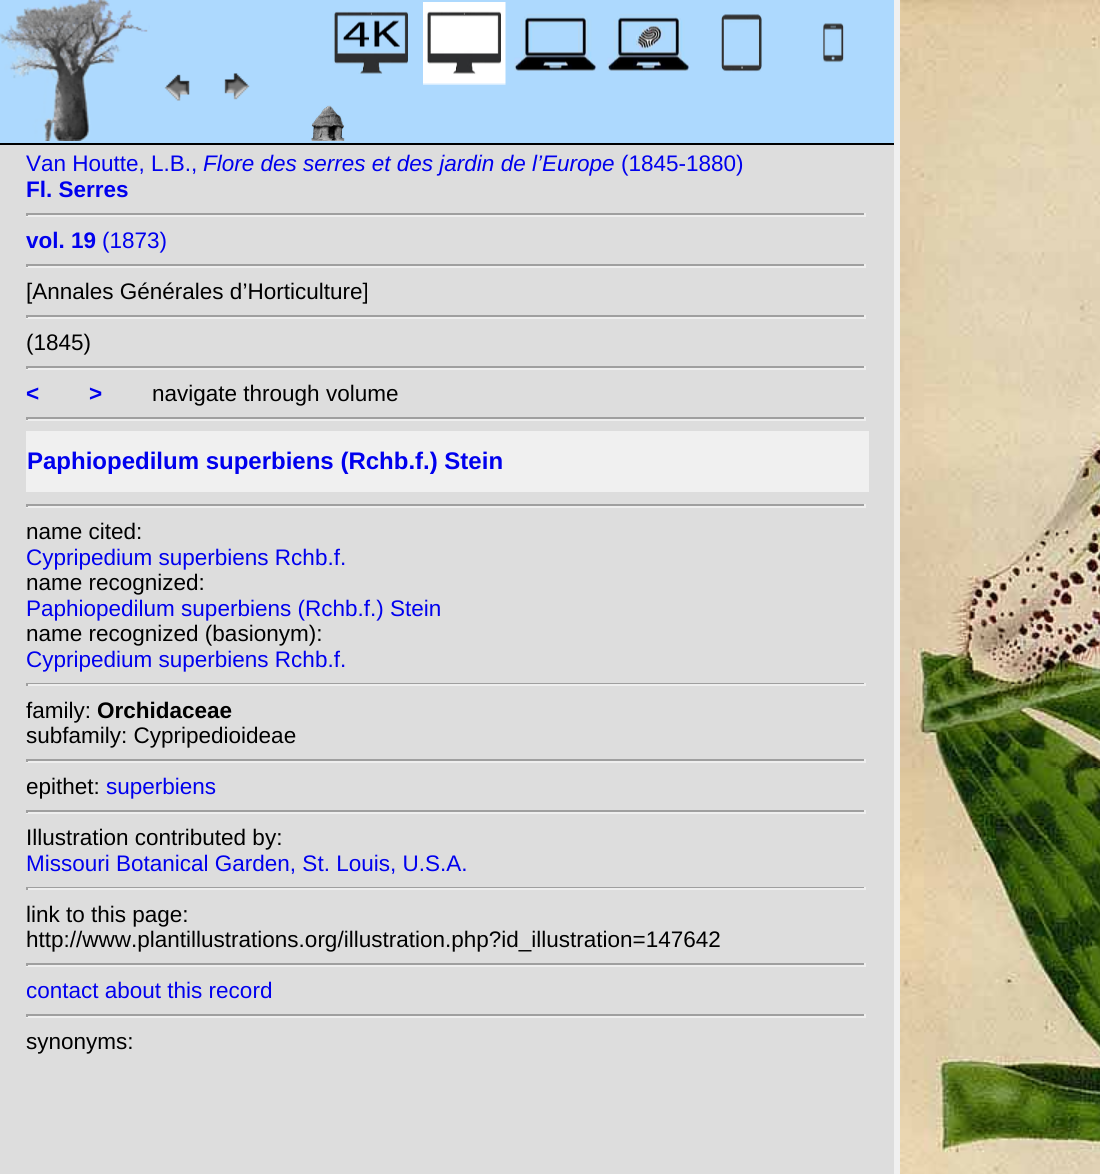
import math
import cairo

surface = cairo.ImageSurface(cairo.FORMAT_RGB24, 1100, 1174)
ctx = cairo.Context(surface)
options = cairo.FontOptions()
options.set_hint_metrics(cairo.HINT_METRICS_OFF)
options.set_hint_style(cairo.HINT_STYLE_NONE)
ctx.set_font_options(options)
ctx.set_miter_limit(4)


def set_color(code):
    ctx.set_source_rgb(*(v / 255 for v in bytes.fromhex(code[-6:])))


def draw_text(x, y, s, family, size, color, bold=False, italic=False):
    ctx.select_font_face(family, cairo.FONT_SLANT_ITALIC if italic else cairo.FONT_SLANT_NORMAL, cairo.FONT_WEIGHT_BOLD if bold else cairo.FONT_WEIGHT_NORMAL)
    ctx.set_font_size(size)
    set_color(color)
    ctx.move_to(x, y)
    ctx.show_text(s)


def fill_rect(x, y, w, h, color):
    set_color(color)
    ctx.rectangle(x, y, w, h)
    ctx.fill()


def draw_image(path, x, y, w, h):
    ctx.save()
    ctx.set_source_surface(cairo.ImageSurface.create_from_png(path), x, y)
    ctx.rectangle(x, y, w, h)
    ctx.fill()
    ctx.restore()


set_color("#f0f0f0")
ctx.paint()
fill_rect(0, 145, 894, 1029, "#dddddd")
fill_rect(0, 0, 894, 143, "#add9fe")
fill_rect(0, 143, 894, 2, "#000000")
draw_image("assets/img1.png", 0, 0, 150, 141)
draw_image("assets/img2.png", 164, 74, 26, 27)
draw_image("assets/img3.png", 224, 73, 26, 27)
draw_image("assets/img4.png", 333, 11, 75, 63)
draw_image("assets/img5.png", 423, 2, 83, 83)
draw_image("assets/img6.png", 514, 14, 83, 57)
draw_image("assets/img7.png", 607, 14, 83, 57)
draw_image("assets/img8.png", 721, 14, 41, 58)
draw_image("assets/img9.png", 823, 23, 21, 40)
draw_image("assets/img10.png", 311, 105, 34, 36)
draw_text(26, 171, "Van Houtte, L.B.,", "Liberation Sans", 22.5, "#0000ee")
draw_text(203, 171, "Flore des serres et des jardin de l’Europe", "Liberation Sans", 22.5, "#0000ee", italic=True)
draw_text(621, 171, "(1845-1880)", "Liberation Sans", 22.5, "#0000ee")
draw_text(26, 197, "Fl. Serres", "Liberation Sans", 22.5, "#0000ee", bold=True)
fill_rect(26, 213, 840, 2, "#9f9f9f")
fill_rect(864, 213, 2, 3, "#eeeeee")
fill_rect(26, 215, 840, 2, "#eeeeee")
fill_rect(26, 213, 2, 3, "#9f9f9f")
draw_text(26, 248, "vol. 19", "Liberation Sans", 22.5, "#0000ee", bold=True)
draw_text(102, 248, "(1873)", "Liberation Sans", 22.5, "#0000ee")
fill_rect(26, 264, 840, 2, "#9f9f9f")
fill_rect(864, 264, 2, 3, "#eeeeee")
fill_rect(26, 266, 840, 2, "#eeeeee")
fill_rect(26, 264, 2, 3, "#9f9f9f")
draw_text(26, 299, "[Annales Générales d’Horticulture]", "Liberation Sans", 22.5, "#000000")
fill_rect(26, 315, 840, 2, "#9f9f9f")
fill_rect(864, 315, 2, 3, "#eeeeee")
fill_rect(26, 317, 840, 2, "#eeeeee")
fill_rect(26, 315, 2, 3, "#9f9f9f")
draw_text(26, 350, "(1845)", "Liberation Sans", 22.5, "#000000")
fill_rect(26, 366, 840, 2, "#9f9f9f")
fill_rect(864, 366, 2, 3, "#eeeeee")
fill_rect(26, 368, 840, 2, "#eeeeee")
fill_rect(26, 366, 2, 3, "#9f9f9f")
draw_text(26, 401, "<", "Liberation Sans", 22.5, "#0000ee", bold=True)
draw_text(89, 401, ">", "Liberation Sans", 22.5, "#0000ee", bold=True)
draw_text(152, 401, "navigate through volume", "Liberation Sans", 22.5, "#000000")
fill_rect(26, 417, 840, 2, "#9f9f9f")
fill_rect(864, 417, 2, 3, "#eeeeee")
fill_rect(26, 419, 840, 2, "#eeeeee")
fill_rect(26, 417, 2, 3, "#9f9f9f")
fill_rect(26, 431, 843, 61, "#f0f0f0")
draw_text(27, 469, "Paphiopedilum superbiens (Rchb.f.) Stein", "Liberation Sans", 24, "#0000ee", bold=True)
fill_rect(26, 504, 840, 2, "#9f9f9f")
fill_rect(864, 504, 2, 3, "#eeeeee")
fill_rect(26, 506, 840, 2, "#eeeeee")
fill_rect(26, 504, 2, 3, "#9f9f9f")
draw_text(26, 539, "name cited:", "Liberation Sans", 22.5, "#000000")
draw_text(26, 565, "Cypripedium superbiens Rchb.f.", "Liberation Sans", 22.5, "#0000ee")
draw_text(26, 590, "name recognized:", "Liberation Sans", 22.5, "#000000")
draw_text(26, 616, "Paphiopedilum superbiens (Rchb.f.) Stein", "Liberation Sans", 22.5, "#0000ee")
draw_text(26, 641, "name recognized (basionym):", "Liberation Sans", 22.5, "#000000")
draw_text(26, 667, "Cypripedium superbiens Rchb.f.", "Liberation Sans", 22.5, "#0000ee")
fill_rect(26, 683, 840, 1, "#9f9f9f")
fill_rect(864, 683, 2, 3, "#eeeeee")
fill_rect(26, 684, 840, 2, "#eeeeee")
fill_rect(26, 683, 2, 3, "#9f9f9f")
draw_text(26, 718, "family:", "Liberation Sans", 22.5, "#000000")
draw_text(97, 718, "Orchidaceae", "Liberation Sans", 22.5, "#000000", bold=True)
draw_text(26, 743, "subfamily: Cypripedioideae", "Liberation Sans", 22.5, "#000000")
fill_rect(26, 759, 840, 2, "#9f9f9f")
fill_rect(864, 759, 2, 3, "#eeeeee")
fill_rect(26, 761, 840, 2, "#eeeeee")
fill_rect(26, 759, 2, 3, "#9f9f9f")
draw_text(26, 794, "epithet:", "Liberation Sans", 22.5, "#000000")
draw_text(106, 794, "superbiens", "Liberation Sans", 22.5, "#0000ee")
fill_rect(26, 810, 840, 2, "#9f9f9f")
fill_rect(864, 810, 2, 3, "#eeeeee")
fill_rect(26, 812, 840, 2, "#eeeeee")
fill_rect(26, 810, 2, 3, "#9f9f9f")
draw_text(26, 845, "Illustration contributed by:", "Liberation Sans", 22.5, "#000000")
draw_text(26, 871, "Missouri Botanical Garden, St. Louis, U.S.A.", "Liberation Sans", 22.5, "#0000ee")
fill_rect(26, 887, 840, 1, "#9f9f9f")
fill_rect(864, 887, 2, 3, "#eeeeee")
fill_rect(26, 888, 840, 2, "#eeeeee")
fill_rect(26, 887, 2, 3, "#9f9f9f")
draw_text(26, 922, "link to this page:", "Liberation Sans", 22.5, "#000000")
draw_text(26, 947, "http://www.plantillustrations.org/illustration.php?id_illustration=147642", "Liberation Sans", 22.5, "#000000")
fill_rect(26, 963, 840, 2, "#9f9f9f")
fill_rect(864, 963, 2, 3, "#eeeeee")
fill_rect(26, 965, 840, 2, "#eeeeee")
fill_rect(26, 963, 2, 3, "#9f9f9f")
draw_text(26, 998, "contact about this record", "Liberation Sans", 22.5, "#0000ee")
fill_rect(26, 1014, 840, 2, "#9f9f9f")
fill_rect(864, 1014, 2, 3, "#eeeeee")
fill_rect(26, 1016, 840, 2, "#eeeeee")
fill_rect(26, 1014, 2, 3, "#9f9f9f")
draw_text(26, 1049, "synonyms:", "Liberation Sans", 22.5, "#000000")
draw_image("assets/img11.png", 900, 0, 200, 1174)
surface.write_to_png("output.png")
